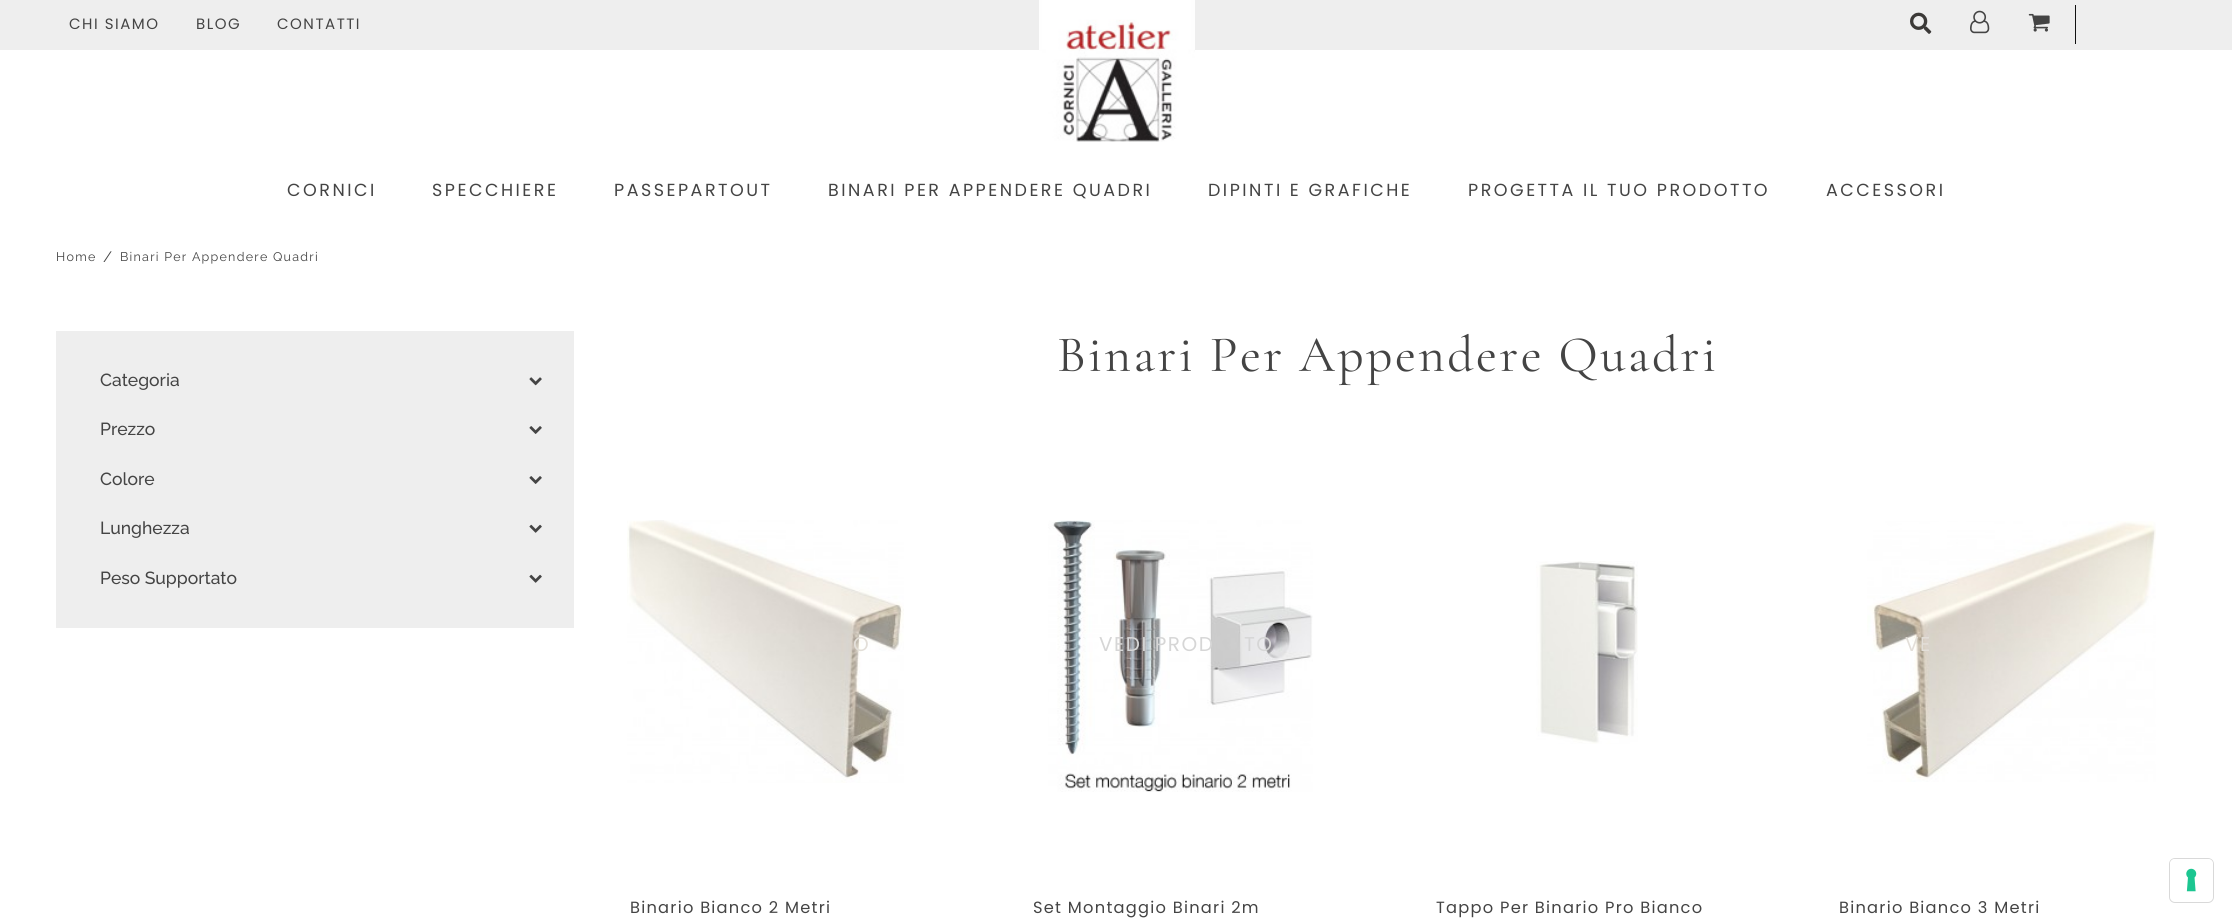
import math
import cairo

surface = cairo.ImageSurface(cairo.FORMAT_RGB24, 2232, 921)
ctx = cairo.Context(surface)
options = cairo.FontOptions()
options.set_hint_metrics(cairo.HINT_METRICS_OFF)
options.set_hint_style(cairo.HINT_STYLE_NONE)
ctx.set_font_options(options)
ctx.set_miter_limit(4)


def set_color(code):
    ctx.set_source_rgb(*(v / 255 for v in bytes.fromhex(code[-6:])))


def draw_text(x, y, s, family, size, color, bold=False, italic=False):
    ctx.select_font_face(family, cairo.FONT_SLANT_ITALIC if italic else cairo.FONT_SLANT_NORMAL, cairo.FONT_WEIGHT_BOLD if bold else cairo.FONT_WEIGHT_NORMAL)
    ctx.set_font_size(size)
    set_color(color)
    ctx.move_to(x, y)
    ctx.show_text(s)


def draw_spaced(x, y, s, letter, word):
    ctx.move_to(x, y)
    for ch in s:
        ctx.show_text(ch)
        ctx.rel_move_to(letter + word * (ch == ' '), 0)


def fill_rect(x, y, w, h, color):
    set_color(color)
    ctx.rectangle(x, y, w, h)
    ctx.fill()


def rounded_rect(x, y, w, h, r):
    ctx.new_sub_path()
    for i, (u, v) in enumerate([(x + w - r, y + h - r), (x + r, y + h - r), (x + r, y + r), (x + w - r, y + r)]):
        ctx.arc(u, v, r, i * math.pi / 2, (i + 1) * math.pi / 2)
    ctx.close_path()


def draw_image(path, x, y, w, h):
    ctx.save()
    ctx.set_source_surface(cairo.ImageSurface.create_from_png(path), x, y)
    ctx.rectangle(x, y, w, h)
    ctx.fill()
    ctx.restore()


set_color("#ffffff")
ctx.paint()
fill_rect(0, 0, 2232, 50, "#eeeeee")
ctx.select_font_face("Poppins")
ctx.set_font_size(15)
set_color("#444444")
draw_spaced(69, 29, "CHI SIAMO", 1.5, 0)
draw_spaced(196, 29, "BLOG", 1.5, 0)
draw_spaced(277, 29, "CONTATTI", 1.5, 0)
draw_image("assets/img1.png", 1039, 0, 156, 142)
draw_image("assets/img2.png", 1910, 12, 22, 22)
draw_image("assets/img3.png", 1970, 10, 20, 24)
draw_image("assets/img4.png", 2028, 13, 22, 19)
fill_rect(2075, 5, 1, 39, "#111111")
ctx.set_font_size(17.5)
set_color("#444444")
draw_spaced(287, 196, "CORNICI", 2.5, 0)
draw_spaced(432, 196, "SPECCHIERE", 2.5, 0)
draw_spaced(614, 196, "PASSEPARTOUT", 2.5, 0)
draw_spaced(828, 196, "BINARI PER APPENDERE QUADRI", 2.5, 0)
draw_spaced(1208, 196, "DIPINTI E GRAFICHE", 2.5, 0)
draw_spaced(1468, 196, "PROGETTA IL TUO PRODOTTO", 2.5, 0)
draw_spaced(1826, 196, "ACCESSORI", 2.5, 0)
ctx.select_font_face("Raleway")
ctx.set_font_size(12.5)
draw_spaced(56, 261, "Home", 1.25, 0)
ctx.set_font_size(15)
draw_spaced(103, 262, "/", 1.25, 0)
ctx.set_font_size(12.5)
draw_spaced(120, 261, "Binari Per Appendere Quadri", 1.25, 0)
fill_rect(56, 331, 518, 297, "#eeeeee")
draw_text(100, 386, "Categoria", "Raleway Medium", 17.5, "#444444")
draw_image("assets/img5.png", 529, 377, 13, 9)
draw_text(100, 435, "Prezzo", "Raleway Medium", 17.5, "#444444")
draw_image("assets/img6.png", 529, 426, 13, 8)
draw_text(100, 485, "Colore", "Raleway Medium", 17.5, "#444444")
draw_image("assets/img6.png", 529, 476, 13, 8)
draw_text(100, 534, "Lunghezza", "Raleway Medium", 17.5, "#444444")
draw_image("assets/img7.png", 529, 524, 13, 9)
draw_text(100, 584, "Peso Supportato", "Raleway Medium", 17.5, "#444444")
draw_image("assets/img7.png", 529, 574, 13, 9)
ctx.select_font_face("Cormorant Garamond")
ctx.set_font_size(51.25)
draw_spaced(1057, 371, "Binari Per Appendere Quadri", 2.5, 0)
draw_image("assets/img8.png", 627, 520, 277, 263)
ctx.select_font_face("Poppins")
ctx.set_font_size(20)
set_color("#e3dfd9")
draw_spaced(853, 651, "O", 1.5, 0)
ctx.set_font_size(16.25)
set_color("#444444")
draw_spaced(630, 913, "Binario Bianco 2 Metri", 1.25, 0)
draw_image("assets/img9.png", 1048, 520, 265, 272)
ctx.set_font_size(20)
set_color("#d6d6d6")
draw_spaced(1099, 651, "VEDI PROD", 1.5, 0)
draw_spaced(1244, 651, "TO", 1.5, 0)
ctx.set_font_size(16.25)
set_color("#444444")
draw_spaced(1033, 913, "Set Montaggio Binari 2m", 1.25, 0)
draw_image("assets/img10.png", 1536, 561, 102, 183)
draw_spaced(1436, 913, "Tappo Per Binario Pro Bianco", 1.25, 0)
draw_image("assets/img11.png", 1867, 521, 289, 261)
ctx.set_font_size(20)
set_color("#e3dfd9")
draw_spaced(1905, 651, "VE", 1.5, 0)
ctx.set_font_size(16.25)
set_color("#444444")
draw_spaced(1839, 913, "Binario Bianco 3 Metri", 1.25, 0)
rounded_rect(2169.5, 858.5, 44, 44, 5.5)
set_color("#d9d9d9")
ctx.set_line_width(1)
ctx.stroke()
set_color("#ffffff")
rounded_rect(2170, 859, 43, 42, 5)
ctx.fill()
draw_image("assets/img12.png", 2186, 868, 11, 24)
surface.write_to_png("output.png")
